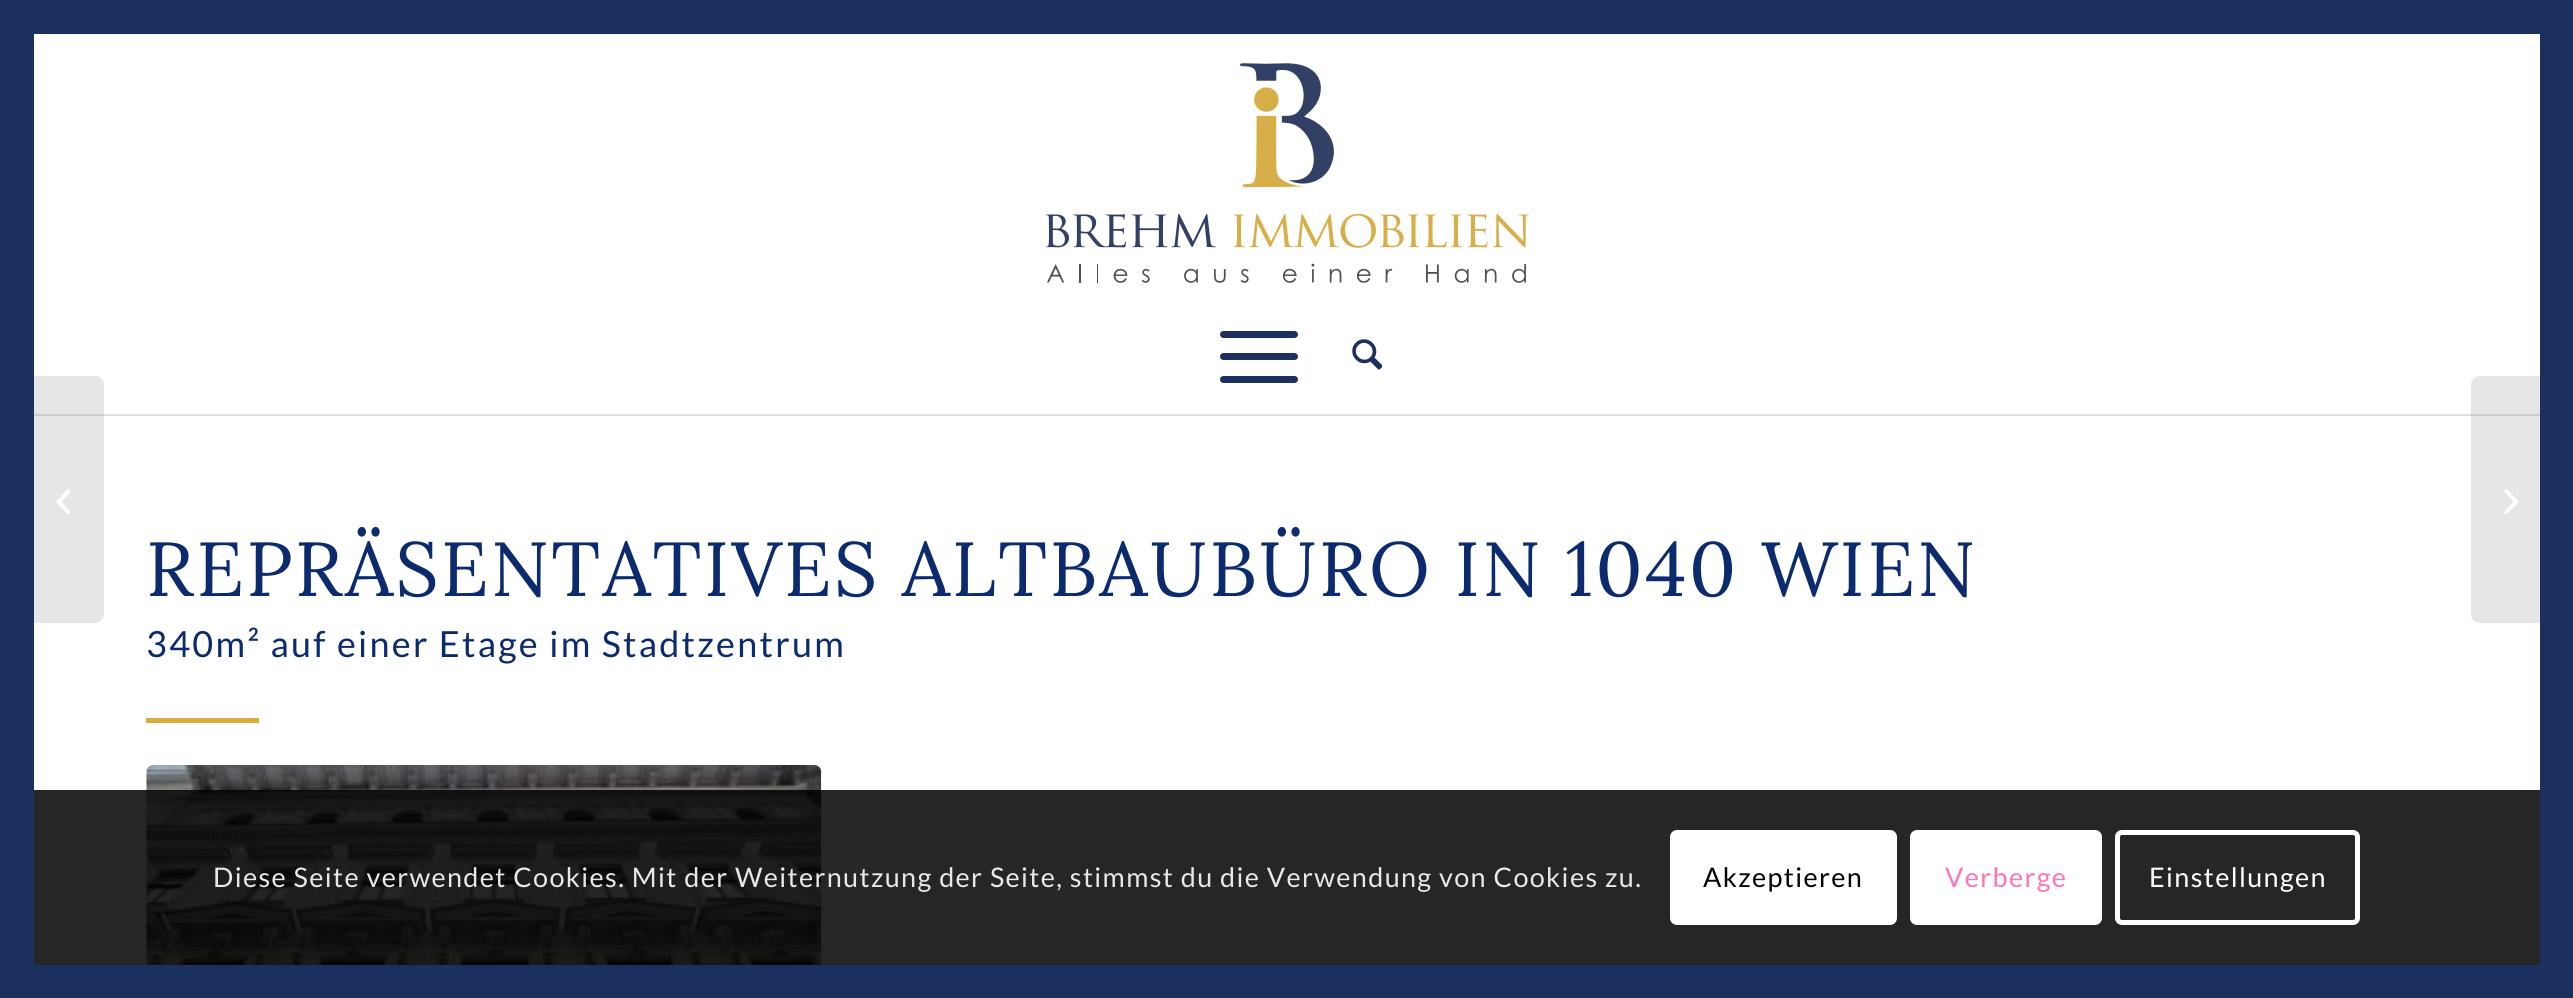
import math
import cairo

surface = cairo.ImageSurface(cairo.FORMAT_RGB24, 2573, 998)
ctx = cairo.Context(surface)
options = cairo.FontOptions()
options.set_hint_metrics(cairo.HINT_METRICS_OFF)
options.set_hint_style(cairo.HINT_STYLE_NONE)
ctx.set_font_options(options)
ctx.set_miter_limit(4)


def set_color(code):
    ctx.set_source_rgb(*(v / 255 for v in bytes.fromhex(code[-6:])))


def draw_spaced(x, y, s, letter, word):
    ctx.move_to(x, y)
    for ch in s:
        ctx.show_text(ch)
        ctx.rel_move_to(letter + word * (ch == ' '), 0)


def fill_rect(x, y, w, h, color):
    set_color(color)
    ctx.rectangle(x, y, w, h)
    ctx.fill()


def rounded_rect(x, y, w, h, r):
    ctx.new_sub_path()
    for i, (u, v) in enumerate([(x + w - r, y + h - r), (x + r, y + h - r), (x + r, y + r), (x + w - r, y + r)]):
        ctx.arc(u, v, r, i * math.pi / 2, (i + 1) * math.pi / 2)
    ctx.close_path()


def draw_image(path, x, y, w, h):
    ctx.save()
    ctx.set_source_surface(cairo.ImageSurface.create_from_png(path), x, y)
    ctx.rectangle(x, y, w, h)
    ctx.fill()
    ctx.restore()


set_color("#1b305e")
ctx.paint()
fill_rect(34, 414, 2506, 2, "#e1e1e1")
fill_rect(34, 34, 2506, 378, "#ffffff")
draw_image("assets/img1.png", 1046, 63, 483, 220)
set_color("#1b305e")
rounded_rect(1220, 353, 78, 7, 3.5)
ctx.fill()
rounded_rect(1220, 331, 78, 7, 3.5)
ctx.fill()
rounded_rect(1220, 376, 78, 7, 3.5)
ctx.fill()
draw_image("assets/img2.png", 1352, 339, 30, 31)
fill_rect(34, 416, 2506, 549, "#ffffff")
fill_rect(34, 412, 2506, 2, "#fefefe")
ctx.set_source_rgba(0, 0, 0, 0.1)
ctx.new_path()
ctx.move_to(34, 376)
ctx.line_to(95, 376)
ctx.curve_to(100, 376, 104, 380, 104, 385)
ctx.line_to(104, 614)
ctx.curve_to(104, 619, 100, 623, 95, 623)
ctx.line_to(34, 623)
ctx.close_path()
ctx.fill()
draw_image("assets/img3.png", 56, 489, 14, 25)
ctx.select_font_face("Lora")
ctx.set_font_size(76.5)
set_color("#0c2b6e")
draw_spaced(146, 596, "REPRÄSENTATIVES ALTBAUBÜRO IN 1040 WIEN", 2.25, 0)
ctx.select_font_face("Lato")
ctx.set_font_size(36)
draw_spaced(146, 657, "340m² auf einer Etage im Stadtzentrum", 2.25, 0)
fill_rect(146, 718, 113, 5, "#d9ac3d")
draw_image("assets/img4.png", 146, 765, 676, 200)
ctx.set_source_rgba(0, 0, 0, 0.1)
ctx.new_path()
ctx.move_to(2480, 376)
ctx.line_to(2540, 376)
ctx.line_to(2540, 623)
ctx.line_to(2480, 623)
ctx.curve_to(2475, 623, 2471, 619, 2471, 614)
ctx.line_to(2471, 385)
ctx.curve_to(2471, 380, 2475, 376, 2480, 376)
ctx.close_path()
ctx.fill()
draw_image("assets/img5.png", 2504, 489, 14, 25)
ctx.set_source_rgba(0, 0, 0, 0.85)
ctx.rectangle(34, 790, 2506, 175)
ctx.fill()
ctx.set_font_size(27)
set_color("#e8e8e9")
draw_spaced(213, 887, "Diese Seite verwendet Cookies. Mit der Weiternutzung der Seite, stimmst du die Verwendung von Cookies zu.", 1.35, 0)
set_color("#ffffff")
rounded_rect(1670, 830, 227, 95, 7)
ctx.fill()
set_color("#000000")
draw_spaced(1703, 887, "Akzeptieren", 1.35, 0)
set_color("#ffffff")
rounded_rect(1912.5, 832.5, 187, 90, 4.5)
ctx.fill_preserve()
ctx.set_line_width(5)
ctx.stroke()
set_color("#ff75b5")
draw_spaced(1945, 887, "Verberge", 1.35, 0)
rounded_rect(2117.5, 832.5, 240, 90, 4.5)
set_color("#ffffff")
ctx.stroke()
draw_spaced(2149, 887, "Einstellungen", 1.35, 0)
surface.write_to_png("output.png")
